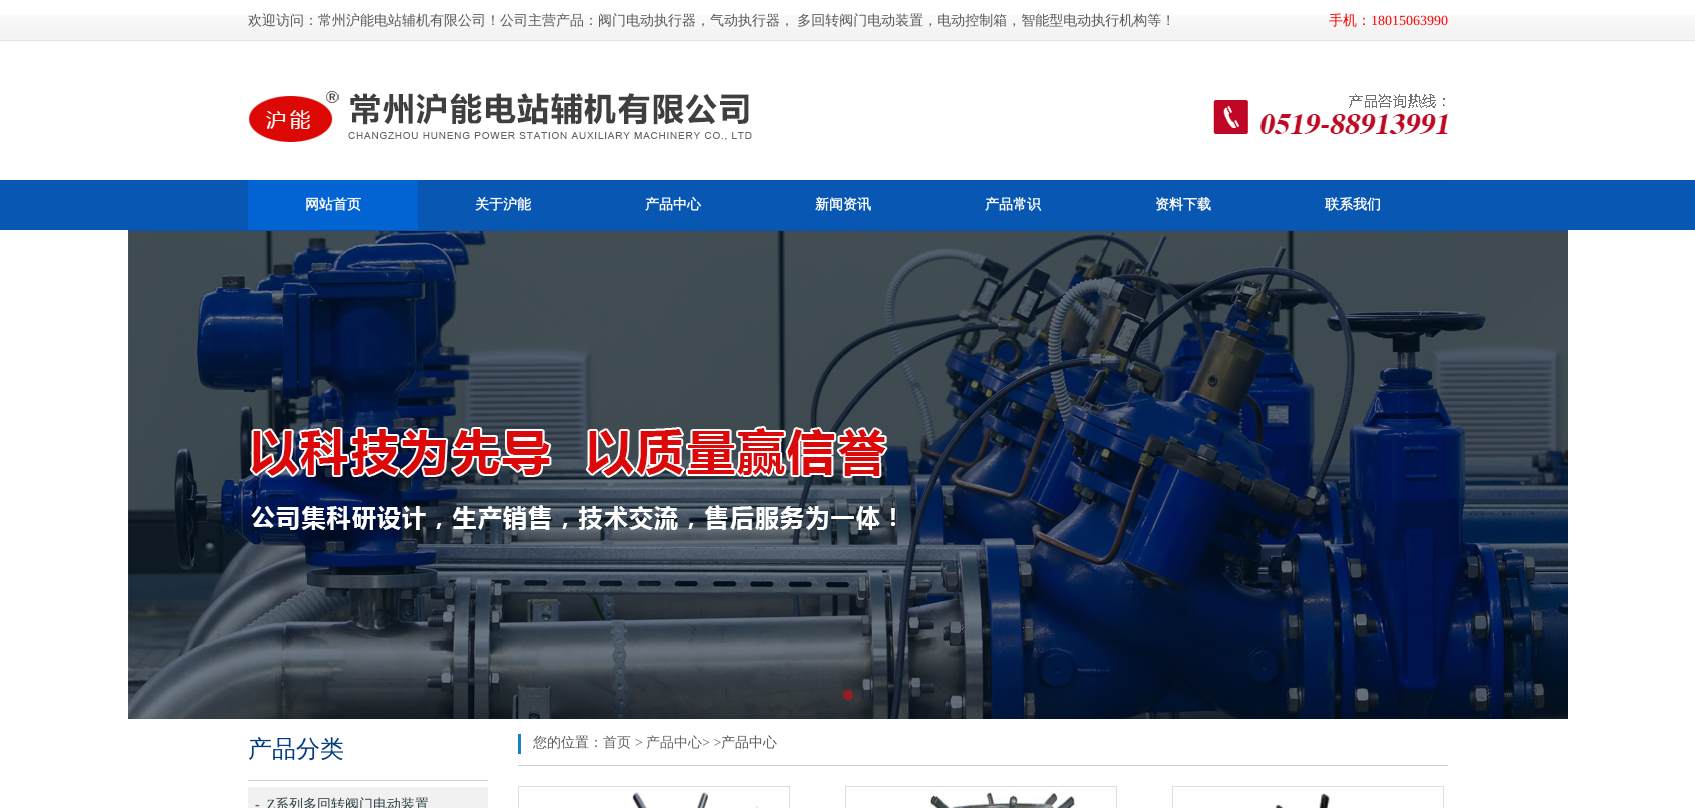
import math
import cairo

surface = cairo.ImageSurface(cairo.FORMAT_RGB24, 1695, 808)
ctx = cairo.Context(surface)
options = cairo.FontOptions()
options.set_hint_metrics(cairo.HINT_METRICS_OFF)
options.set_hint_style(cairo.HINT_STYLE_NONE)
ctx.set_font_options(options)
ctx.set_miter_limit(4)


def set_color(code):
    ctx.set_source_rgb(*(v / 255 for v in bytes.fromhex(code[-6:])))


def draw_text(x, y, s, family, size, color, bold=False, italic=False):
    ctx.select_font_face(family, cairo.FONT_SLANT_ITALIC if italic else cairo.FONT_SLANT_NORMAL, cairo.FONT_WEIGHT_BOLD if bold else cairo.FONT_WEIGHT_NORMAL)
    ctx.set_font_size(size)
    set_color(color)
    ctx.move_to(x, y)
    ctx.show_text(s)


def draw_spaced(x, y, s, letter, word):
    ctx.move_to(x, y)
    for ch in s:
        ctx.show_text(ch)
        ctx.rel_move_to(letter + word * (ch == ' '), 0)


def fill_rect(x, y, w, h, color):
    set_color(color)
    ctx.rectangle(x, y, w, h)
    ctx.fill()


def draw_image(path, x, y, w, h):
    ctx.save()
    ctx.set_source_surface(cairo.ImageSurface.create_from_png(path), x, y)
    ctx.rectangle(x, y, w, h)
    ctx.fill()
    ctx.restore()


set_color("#ffffff")
ctx.paint()
draw_image("assets/img1.png", 0, 15, 1695, 26)
ctx.select_font_face("WenQuanYi Zen Hei Medium")
ctx.set_font_size(14)
set_color("#585858")
draw_spaced(248, 25, "欢迎访问：常州沪能电站辅机有限公司！公司主营产品：阀门电动执行器，气动执行器， 多回转阀门电动装置，电动控制箱，智能型电动执行机构等！", 0, -1)
draw_text(1329, 25, "手机：", "WenQuanYi Zen Hei Medium", 14, "#ff0000")
draw_text(1371, 25, "18015063990", "Liberation Serif", 14, "#ff0000")
draw_image("assets/img2.png", 248, 91, 1200, 89)
fill_rect(0, 180, 1695, 50, "#0857b3")
fill_rect(248, 180, 170, 50, "#0264d3")
draw_text(305, 209, "网站首页", "WenQuanYi Zen Hei", 14, "#ffffff", bold=True)
draw_text(475, 209, "关于沪能", "WenQuanYi Zen Hei", 14, "#ffffff", bold=True)
draw_text(645, 209, "产品中心", "WenQuanYi Zen Hei", 14, "#ffffff", bold=True)
draw_text(815, 209, "新闻资讯", "WenQuanYi Zen Hei", 14, "#ffffff", bold=True)
draw_text(985, 209, "产品常识", "WenQuanYi Zen Hei", 14, "#ffffff", bold=True)
draw_text(1155, 209, "资料下载", "WenQuanYi Zen Hei", 14, "#ffffff", bold=True)
draw_text(1325, 209, "联系我们", "WenQuanYi Zen Hei", 14, "#ffffff", bold=True)
draw_image("assets/img3.png", 128, 230, 1440, 489)
ctx.set_source_rgba(1, 0, 0, 0.5)
ctx.arc(848, 695, 5, 0, 2 * math.pi)
ctx.fill()
fill_rect(248, 780, 240, 1, "#cccccc")
draw_text(248, 757, "产品分类", "WenQuanYi Zen Hei Medium", 24, "#003c7e")
fill_rect(248, 787, 240, 21, "#f1f1f1")
draw_text(255, 809, "-  Z", "Liberation Serif", 14, "#2e4146")
draw_text(275, 809, "系列多回转阀门电动装置", "WenQuanYi Zen Hei Medium", 14, "#2e4146")
fill_rect(518, 765, 930, 1, "#cccccc")
fill_rect(518, 734, 3, 20, "#1282c4")
draw_text(533, 747, "您的位置：", "WenQuanYi Zen Hei Medium", 14, "#585858")
draw_text(603, 747, "首页", "WenQuanYi Zen Hei Medium", 14, "#636363")
draw_text(635, 747, ">", "Liberation Serif", 14, "#585858")
draw_text(646, 747, "产品中心", "WenQuanYi Zen Hei Medium", 14, "#636363")
draw_text(702, 747, "> >", "Liberation Serif", 14, "#585858")
draw_text(721, 747, "产品中心", "WenQuanYi Zen Hei Medium", 14, "#585858")
ctx.rectangle(518.5, 786.5, 271, 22)
set_color("#dddddd")
ctx.set_line_width(1)
ctx.stroke()
draw_image("assets/img4.png", 599, 790, 160, 18)
ctx.rectangle(845.5, 786.5, 271, 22)
ctx.stroke()
draw_image("assets/img5.png", 927, 790, 150, 18)
ctx.rectangle(1172.5, 786.5, 271, 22)
ctx.stroke()
draw_image("assets/img6.png", 1275, 792, 86, 16)
surface.write_to_png("output.png")
